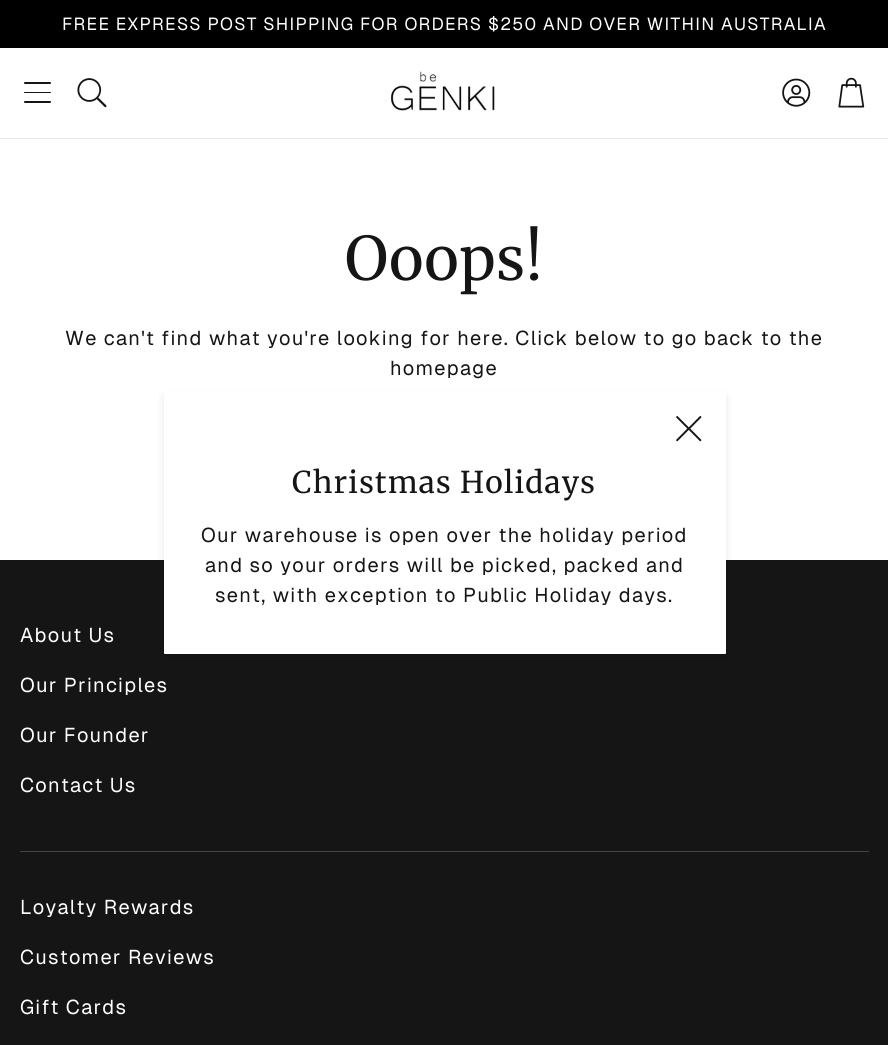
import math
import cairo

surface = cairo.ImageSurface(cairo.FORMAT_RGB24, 888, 1045)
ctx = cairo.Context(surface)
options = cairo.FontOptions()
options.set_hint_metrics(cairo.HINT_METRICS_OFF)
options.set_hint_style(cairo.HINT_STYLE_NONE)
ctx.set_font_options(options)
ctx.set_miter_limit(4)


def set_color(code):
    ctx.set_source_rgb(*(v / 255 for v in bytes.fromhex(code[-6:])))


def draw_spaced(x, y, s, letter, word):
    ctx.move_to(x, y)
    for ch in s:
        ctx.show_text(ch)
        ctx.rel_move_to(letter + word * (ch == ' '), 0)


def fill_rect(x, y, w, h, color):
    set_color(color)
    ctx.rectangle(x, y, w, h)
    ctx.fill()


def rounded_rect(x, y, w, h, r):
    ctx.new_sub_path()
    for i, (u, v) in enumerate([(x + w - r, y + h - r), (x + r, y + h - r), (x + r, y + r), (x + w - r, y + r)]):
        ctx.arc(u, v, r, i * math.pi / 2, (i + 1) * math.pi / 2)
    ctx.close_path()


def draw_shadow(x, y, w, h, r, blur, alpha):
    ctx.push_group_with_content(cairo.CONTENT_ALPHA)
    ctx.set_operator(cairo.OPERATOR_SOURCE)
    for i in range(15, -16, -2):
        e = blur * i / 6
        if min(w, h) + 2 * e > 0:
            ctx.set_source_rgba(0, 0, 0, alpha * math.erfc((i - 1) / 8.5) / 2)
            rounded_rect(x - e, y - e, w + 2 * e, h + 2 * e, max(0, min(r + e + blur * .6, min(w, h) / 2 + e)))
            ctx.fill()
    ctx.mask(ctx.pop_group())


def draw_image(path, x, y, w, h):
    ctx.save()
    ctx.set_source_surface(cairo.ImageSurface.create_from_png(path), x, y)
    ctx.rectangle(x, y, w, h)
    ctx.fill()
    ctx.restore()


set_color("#ffffff")
ctx.paint()
fill_rect(0, 0, 888, 48, "#000000")
ctx.select_font_face("Geist")
ctx.set_font_size(17.5)
set_color("#ffffff")
draw_spaced(62, 30, "FREE EXPRESS POST SHIPPING FOR ORDERS $250 AND OVER WITHIN AUSTRALIA", 1.25, 0)
fill_rect(0, 138, 888, 1, "#e7e7e7")
set_color("#151515")
rounded_rect(24, 82, 27, 2, 1)
ctx.fill()
rounded_rect(24, 92, 27, 1, 0.5)
ctx.fill()
rounded_rect(24, 101, 27, 2, 1)
ctx.fill()
draw_image("assets/img1.png", 77, 78, 30, 30)
draw_image("assets/img2.png", 391, 71, 105, 40)
draw_image("assets/img3.png", 782, 78, 29, 29)
draw_image("assets/img4.png", 838, 77, 27, 31)
ctx.select_font_face("Merriweather")
ctx.set_font_size(60)
draw_spaced(345, 280, "Ooops!", 1.25, 0)
ctx.select_font_face("Geist")
ctx.set_font_size(20)
draw_spaced(65, 345, "We can't find what you're looking for here. Click below to go back to the", 1.25, 0)
draw_spaced(390, 375, "homepage", 1.25, 0)
fill_rect(0, 560, 888, 485, "#151515")
set_color("#000000")
draw_shadow(164, 396, 562, 263, 1, 4, 0.1)
set_color("#ffffff")
rounded_rect(164, 391, 562, 263, 1)
ctx.fill()
draw_image("assets/img5.png", 676, 416, 26, 26)
ctx.select_font_face("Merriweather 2")
ctx.set_font_size(30)
set_color("#151515")
draw_spaced(292, 493, "Christmas Holidays", 1.25, 0)
ctx.select_font_face("Geist")
ctx.set_font_size(20)
draw_spaced(201, 542, "Our warehouse is open over the holiday period", 1.25, 0)
draw_spaced(205, 572, "and so your orders will be picked, packed and", 1.25, 0)
draw_spaced(215, 602, "sent, with exception to Public Holiday days.", 1.25, 0)
set_color("#ffffff")
draw_spaced(20, 642, "About Us", 1.25, 0)
draw_spaced(20, 692, "Our Principles", 1.25, 0)
draw_spaced(20, 742, "Our Founder", 1.25, 0)
draw_spaced(20, 792, "Contact Us", 1.25, 0)
fill_rect(20, 851, 849, 1, "#444444")
set_color("#ffffff")
draw_spaced(20, 914, "Loyalty Rewards", 1.25, 0)
draw_spaced(20, 964, "Customer Reviews", 1.25, 0)
draw_spaced(20, 1014, "Gift Cards", 1.25, 0)
surface.write_to_png("output.png")
